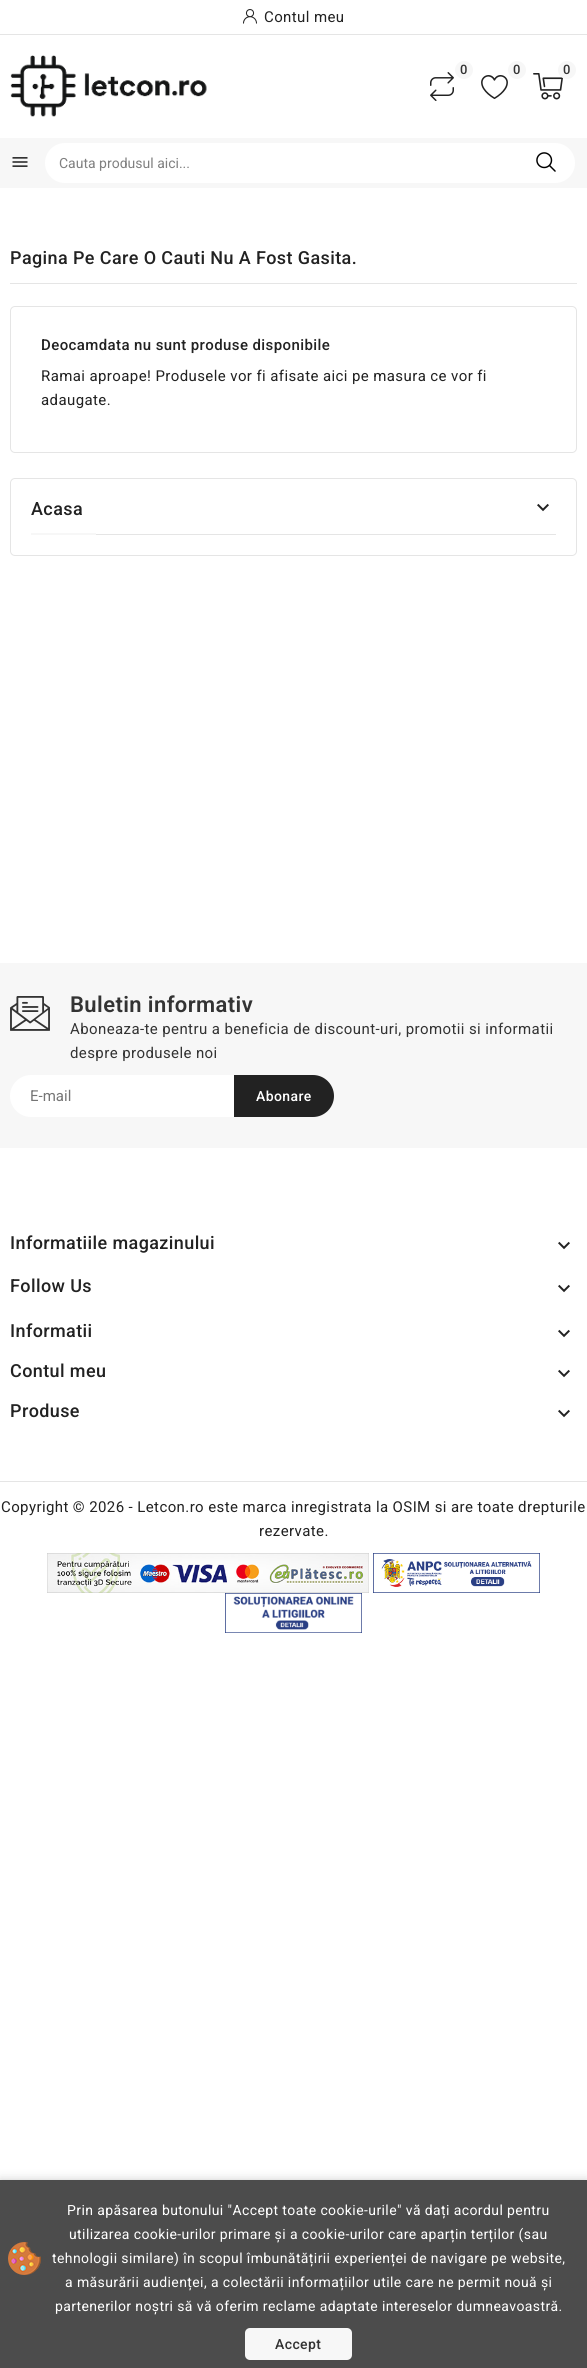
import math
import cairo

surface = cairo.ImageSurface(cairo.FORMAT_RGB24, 587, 2368)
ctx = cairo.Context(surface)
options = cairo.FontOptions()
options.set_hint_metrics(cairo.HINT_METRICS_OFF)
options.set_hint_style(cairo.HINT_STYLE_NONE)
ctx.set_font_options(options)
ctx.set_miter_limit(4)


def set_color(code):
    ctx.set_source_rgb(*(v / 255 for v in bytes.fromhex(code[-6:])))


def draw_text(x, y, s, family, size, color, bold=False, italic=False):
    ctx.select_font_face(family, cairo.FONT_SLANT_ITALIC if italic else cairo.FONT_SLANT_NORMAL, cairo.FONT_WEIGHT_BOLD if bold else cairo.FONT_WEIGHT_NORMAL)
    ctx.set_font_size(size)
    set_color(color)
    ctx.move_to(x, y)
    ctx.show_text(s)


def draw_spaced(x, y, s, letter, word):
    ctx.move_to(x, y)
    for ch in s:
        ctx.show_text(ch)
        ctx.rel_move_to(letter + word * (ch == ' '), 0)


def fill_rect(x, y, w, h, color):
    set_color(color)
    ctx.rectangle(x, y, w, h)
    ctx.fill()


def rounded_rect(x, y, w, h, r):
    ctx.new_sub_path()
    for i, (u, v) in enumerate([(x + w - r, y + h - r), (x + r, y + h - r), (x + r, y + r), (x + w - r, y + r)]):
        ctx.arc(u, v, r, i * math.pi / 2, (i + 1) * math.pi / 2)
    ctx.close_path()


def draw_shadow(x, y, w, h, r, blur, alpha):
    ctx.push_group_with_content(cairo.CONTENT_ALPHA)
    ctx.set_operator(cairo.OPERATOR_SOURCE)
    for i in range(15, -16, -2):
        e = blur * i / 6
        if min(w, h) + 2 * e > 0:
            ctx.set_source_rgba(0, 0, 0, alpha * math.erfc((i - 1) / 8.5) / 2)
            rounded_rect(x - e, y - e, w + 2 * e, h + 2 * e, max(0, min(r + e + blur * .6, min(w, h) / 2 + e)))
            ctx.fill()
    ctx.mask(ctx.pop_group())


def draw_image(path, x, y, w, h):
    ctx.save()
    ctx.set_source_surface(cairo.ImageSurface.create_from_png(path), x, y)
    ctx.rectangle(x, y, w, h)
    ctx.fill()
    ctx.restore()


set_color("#ffffff")
ctx.paint()
fill_rect(0, 34, 587, 1, "#e5e5e5")
draw_image("assets/img1.png", 243, 9, 14, 15)
ctx.select_font_face("Roboto")
ctx.set_font_size(15)
set_color("#222222")
draw_spaced(264, 22, "Contul meu", 0.4, 0)
draw_image("assets/img2.png", 10, 55, 197, 62)
set_color("#f7f7f7")
ctx.arc(464, 70, 9, 0, 2 * math.pi)
ctx.fill()
ctx.select_font_face("Roboto Medium")
ctx.set_font_size(13)
set_color("#333333")
draw_spaced(460, 74, "0", 0.4, 0)
draw_image("assets/img3.png", 430, 72, 24, 29)
set_color("#f7f7f7")
ctx.arc(517, 70, 9, 0, 2 * math.pi)
ctx.fill()
set_color("#333333")
draw_spaced(513, 74, "0", 0.4, 0)
draw_image("assets/img4.png", 481, 75, 27, 24)
draw_image("assets/img5.png", 533, 73, 30, 27)
set_color("#f7f7f7")
ctx.arc(567, 70, 9, 0, 2 * math.pi)
ctx.fill()
set_color("#333333")
draw_spaced(563, 74, "0", 0.4, 0)
fill_rect(0, 138, 587, 50, "#f7f7f7")
draw_image("assets/img6.png", 12, 157, 16, 10)
set_color("#ffffff")
rounded_rect(45, 143, 530, 40, 20)
ctx.fill()
draw_text(59, 168, "Cauta produsul aici...", "Roboto", 14, "#808080")
draw_image("assets/img7.png", 536, 152, 20, 20)
fill_rect(10, 283, 567, 1, "#e5e5e5")
ctx.select_font_face("Roboto Medium")
ctx.set_font_size(18)
set_color("#222222")
draw_spaced(10, 264, "Pagina Pe Care O Cauti Nu A Fost Gasita.", 0.4, 0)
rounded_rect(10.5, 306.5, 566, 146, 4.5)
set_color("#e5e5e5")
ctx.set_line_width(1)
ctx.stroke()
ctx.set_font_size(15)
set_color("#222222")
draw_spaced(41, 350, "Deocamdata nu sunt produse disponibile", 0.4, 0)
ctx.select_font_face("Roboto")
draw_spaced(41, 381, "Ramai aproape! Produsele vor fi afisate aici pe masura ce vor fi", 0.4, 0)
draw_spaced(41, 405, "adaugate.", 0.4, 0)
rounded_rect(10.5, 478.5, 566, 77, 4.5)
set_color("#e5e5e5")
ctx.stroke()
fill_rect(96, 534, 460, 1, "#e5e5e5")
ctx.select_font_face("Roboto Medium")
ctx.set_font_size(18)
set_color("#222222")
draw_spaced(31, 515, "Acasa", 0.4, 0)
draw_image("assets/img8.png", 537, 503, 12, 9)
fill_rect(31, 533, 65, 2, "#f7f7f7")
fill_rect(0, 963, 587, 185, "#f7f7f7")
draw_image("assets/img9.png", 10, 996, 40, 35)
ctx.select_font_face("Roboto SemiBold")
ctx.set_font_size(22)
set_color("#333333")
draw_spaced(70, 1012, "Buletin informativ", 0.4, 0)
ctx.select_font_face("Roboto")
ctx.set_font_size(15)
draw_spaced(70, 1034, "Aboneaza-te pentru a beneficia de discount-uri, promotii si informatii", 0.4, 0)
draw_spaced(70, 1058, "despre produsele noi", 0.4, 0)
set_color("#ffffff")
ctx.new_path()
ctx.move_to(31, 1075)
ctx.line_to(234, 1075)
ctx.line_to(234, 1117)
ctx.line_to(31, 1117)
ctx.curve_to(19.5, 1117, 10, 1107.5, 10, 1096)
ctx.curve_to(10, 1084.5, 19.5, 1075, 31, 1075)
ctx.close_path()
ctx.fill()
draw_text(30, 1101, "E-mail", "Roboto", 15, "#757575")
set_color("#222222")
ctx.new_path()
ctx.move_to(234, 1075)
ctx.line_to(313, 1075)
ctx.curve_to(324.5, 1075, 334, 1084.5, 334, 1096)
ctx.curve_to(334, 1107.5, 324.5, 1117, 313, 1117)
ctx.line_to(234, 1117)
ctx.close_path()
ctx.fill()
ctx.select_font_face("Roboto Medium")
ctx.set_font_size(14)
set_color("#ffffff")
draw_spaced(256, 1101, "Abonare", 0.4, 0)
ctx.set_font_size(18)
set_color("#222222")
draw_spaced(10, 1249, "Informatiile magazinului", 0.4, 0)
draw_image("assets/img8.png", 558, 1241, 12, 9)
draw_spaced(10, 1292, "Follow Us", 0.4, 0)
draw_image("assets/img8.png", 558, 1284, 12, 9)
draw_spaced(10, 1337, "Informatii", 0.4, 0)
draw_image("assets/img8.png", 558, 1329, 12, 9)
draw_spaced(10, 1377, "Contul meu", 0.4, 0)
draw_image("assets/img8.png", 558, 1369, 12, 9)
draw_spaced(10, 1417, "Produse", 0.4, 0)
draw_image("assets/img8.png", 558, 1409, 12, 9)
set_color("#000000")
draw_shadow(0, 2180, 587, 188, 0, 5, 0.2)
fill_rect(0, 2180, 587, 188, "#4c4c4c")
draw_image("assets/img10.png", 8, 2242, 33, 33)
ctx.select_font_face("Roboto")
ctx.set_font_size(14)
set_color("#ffffff")
draw_spaced(67, 2215, "Prin apăsarea butonului \"Accept toate cookie-urile\" vă dați acordul pentru", 0.4, 0)
draw_spaced(69, 2239, "utilizarea cookie-urilor primare și a cookie-urilor care aparțin terților (sau", 0.4, 0)
draw_spaced(52, 2263, "tehnologii similare) în scopul îmbunătățirii experienței de navigare pe website,", 0.4, 0)
draw_spaced(65, 2287, "a măsurării audienței, a colectării informațiilor utile care ne permit nouă și", 0.4, 0)
draw_spaced(55, 2311, "partenerilor noștri să vă oferim reclame adaptate intereselor dumneavoastră.", 0.4, 0)
set_color("#f7f7f7")
rounded_rect(245, 2328, 107, 32, 5)
ctx.fill()
ctx.select_font_face("Roboto Medium")
set_color("#333333")
draw_spaced(275, 2349, "Accept", 0.4, 0)
fill_rect(0, 1481, 587, 1, "#e5e5e5")
ctx.select_font_face("Roboto")
ctx.set_font_size(15)
set_color("#222222")
draw_spaced(1, 1512, "Copyright © 2026 - Letcon.ro este marca inregistrata la OSIM si are toate drepturile", 0.4, 0)
draw_spaced(259, 1536, "rezervate.", 0.4, 0)
draw_image("assets/img11.png", 47, 1553, 322, 40)
draw_image("assets/img12.png", 373, 1553, 167, 40)
draw_image("assets/img13.png", 225, 1593, 137, 40)
surface.write_to_png("output.png")
